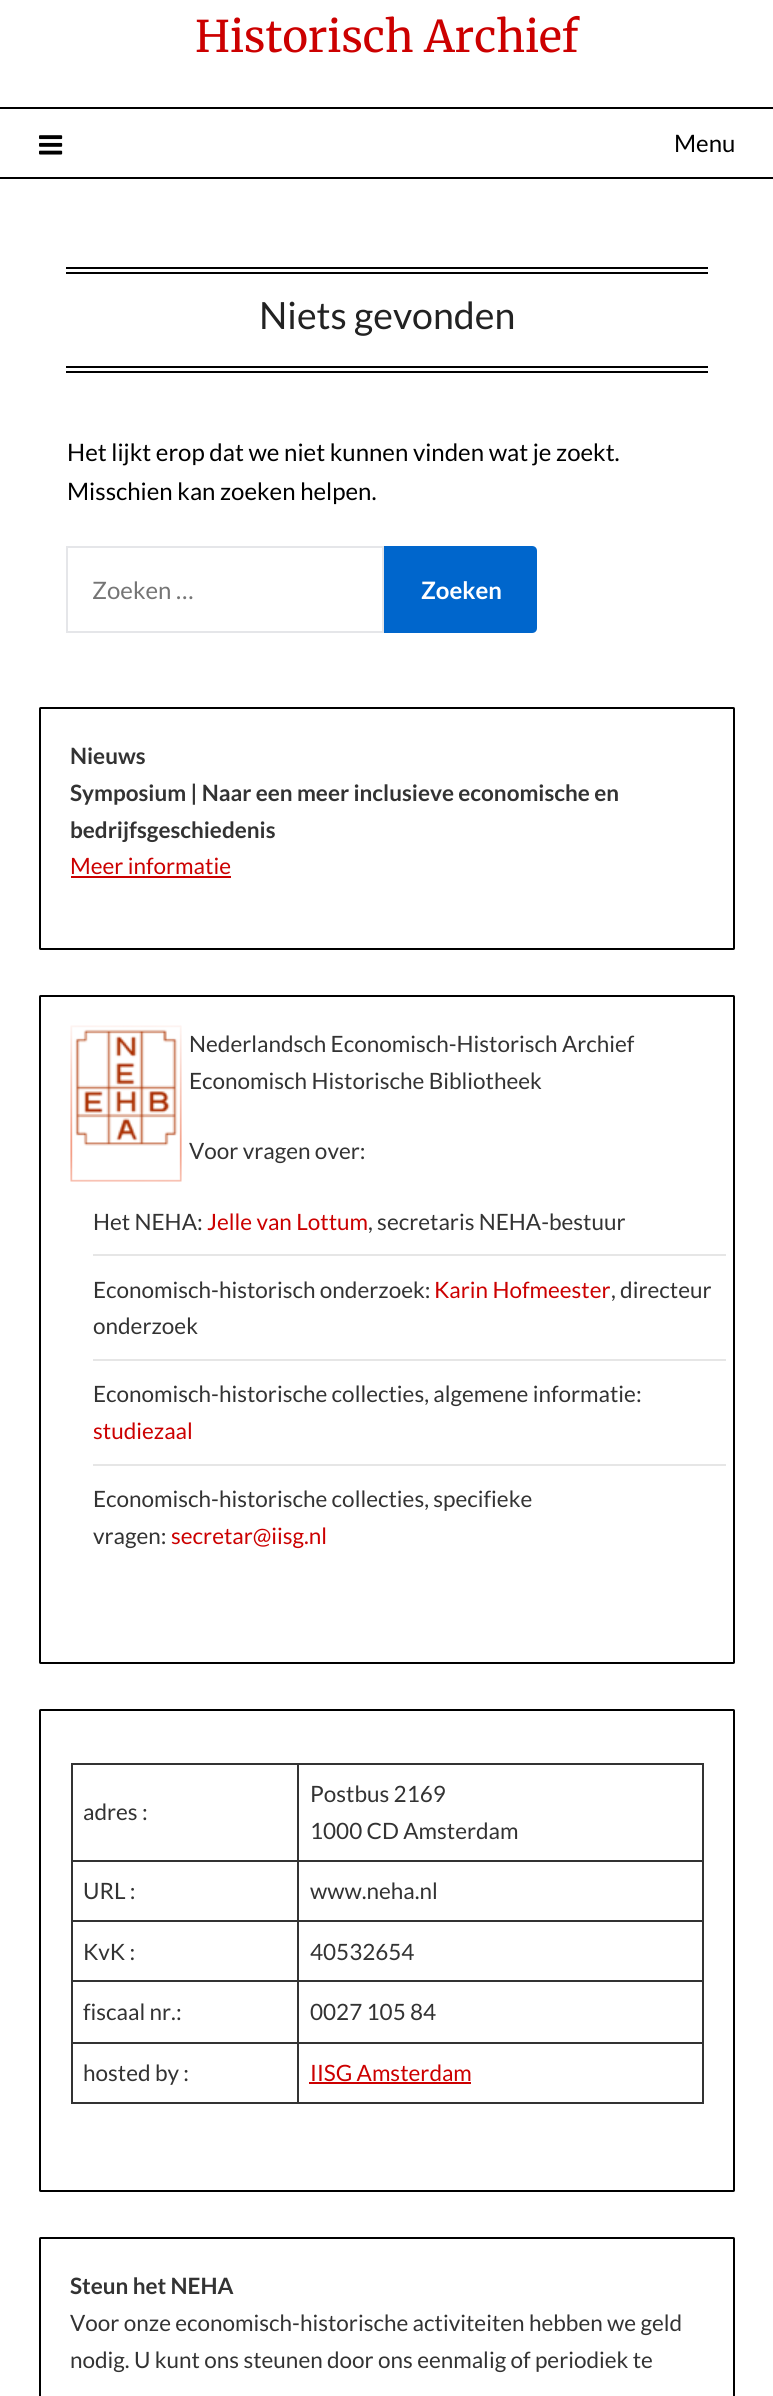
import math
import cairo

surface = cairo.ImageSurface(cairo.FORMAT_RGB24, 773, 2396)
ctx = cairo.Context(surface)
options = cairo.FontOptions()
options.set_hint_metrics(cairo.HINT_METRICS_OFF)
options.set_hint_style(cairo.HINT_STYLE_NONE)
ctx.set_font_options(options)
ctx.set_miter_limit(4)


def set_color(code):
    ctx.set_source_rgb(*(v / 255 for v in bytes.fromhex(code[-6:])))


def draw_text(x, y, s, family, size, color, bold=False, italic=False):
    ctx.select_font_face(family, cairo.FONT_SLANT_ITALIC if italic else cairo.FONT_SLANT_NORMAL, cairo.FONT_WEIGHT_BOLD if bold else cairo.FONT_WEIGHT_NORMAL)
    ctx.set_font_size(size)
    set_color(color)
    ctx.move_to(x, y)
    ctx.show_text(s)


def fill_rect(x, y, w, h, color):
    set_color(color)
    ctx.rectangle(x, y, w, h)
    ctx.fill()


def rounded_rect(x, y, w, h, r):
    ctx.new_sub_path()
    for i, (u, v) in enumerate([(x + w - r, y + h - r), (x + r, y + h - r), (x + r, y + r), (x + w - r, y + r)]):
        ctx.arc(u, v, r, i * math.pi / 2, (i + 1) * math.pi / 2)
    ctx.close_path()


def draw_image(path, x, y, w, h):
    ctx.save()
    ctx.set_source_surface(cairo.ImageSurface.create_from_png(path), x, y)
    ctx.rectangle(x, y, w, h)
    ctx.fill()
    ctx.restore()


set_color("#ffffff")
ctx.paint()
draw_text(195, 52, "Historisch Archief", "Merriweather", 43.5, "#cc0000")
fill_rect(0, 107, 773, 2, "#000000")
fill_rect(0, 177, 773, 2, "#000000")
draw_image("assets/img1.png", 39, 135, 24, 20)
draw_text(674, 152, "Menu", "Lato", 24, "#000000")
fill_rect(66, 267, 642, 2, "#000000")
fill_rect(66, 272, 642, 2, "#000000")
fill_rect(66, 366, 642, 2, "#000000")
fill_rect(66, 371, 642, 2, "#000000")
draw_text(259, 329, "Niets gevonden", "Lato", 37.5, "#222222")
draw_text(67, 461, "Het lijkt erop dat we niet kunnen vinden wat je zoekt.", "Lato", 24, "#000000")
draw_text(67, 500, "Misschien kan zoeken helpen.", "Lato", 24, "#000000")
ctx.rectangle(67, 547, 316, 85)
set_color("#e5e6e9")
ctx.stroke()
draw_text(92, 599, "Zoeken …", "Lato", 24, "#757575")
set_color("#0066cc")
ctx.new_path()
ctx.move_to(384, 546)
ctx.line_to(532, 546)
ctx.curve_to(535, 546, 537, 548, 537, 551)
ctx.line_to(537, 628)
ctx.curve_to(537, 631, 535, 633, 532, 633)
ctx.line_to(384, 633)
ctx.close_path()
ctx.fill()
draw_text(421, 599, "Zoeken", "Lato", 24, "#ffffff", bold=True)
rounded_rect(40, 708, 694, 241, 0.5)
set_color("#000000")
ctx.stroke()
draw_text(70, 764, "Nieuws", "Lato", 22.5, "#333333", bold=True)
draw_text(70, 801, "Symposium | Naar een meer inclusieve economische en", "Lato", 22.5, "#333333", bold=True)
draw_text(70, 838, "bedrijfsgeschiedenis", "Lato", 22.5, "#333333", bold=True)
draw_text(70, 874, "Meer informatie", "Lato", 22.5, "#cc0000")
fill_rect(71, 876, 160, 2, "#cc0000")
rounded_rect(40, 996, 694, 667, 0.5)
set_color("#000000")
ctx.stroke()
draw_image("assets/img2.png", 70, 1025, 112, 157)
draw_text(189, 1052, "Nederlandsch Economisch-Historisch Archief", "Lato", 22.5, "#333333")
draw_text(189, 1089, "Economisch Historische Bibliotheek", "Lato", 22.5, "#333333")
draw_text(189, 1159, "Voor vragen over:", "Lato", 22.5, "#333333")
fill_rect(93, 1254, 633, 2, "#e6e6e6")
draw_text(93, 1230, "Het NEHA:", "Lato", 22.5, "#333333")
draw_text(207, 1230, "Jelle van Lottum", "Lato", 22.5, "#cc0000")
draw_text(368, 1230, ", secretaris NEHA-bestuur", "Lato", 22.5, "#333333")
fill_rect(93, 1359, 633, 2, "#e6e6e6")
draw_text(93, 1298, "Economisch-historisch onderzoek:", "Lato", 22.5, "#333333")
draw_text(434, 1298, "Karin Hofmeester", "Lato", 22.5, "#cc0000")
draw_text(611, 1298, ", directeur", "Lato", 22.5, "#333333")
draw_text(93, 1334, "onderzoek", "Lato", 22.5, "#333333")
fill_rect(93, 1464, 633, 2, "#e6e6e6")
draw_text(93, 1402, "Economisch-historische collecties, algemene informatie:", "Lato", 22.5, "#333333")
draw_text(93, 1439, "studiezaal", "Lato", 22.5, "#cc0000")
draw_text(93, 1507, "Economisch-historische collecties, specifieke", "Lato", 22.5, "#333333")
draw_text(93, 1544, "vragen:", "Lato", 22.5, "#333333")
draw_text(171, 1544, "secretar@iisg.nl", "Lato", 22.5, "#cc0000")
rounded_rect(40, 1710, 694, 481, 0.5)
set_color("#000000")
ctx.stroke()
fill_rect(297, 1763, 407, 2, "#333333")
fill_rect(297, 1860, 407, 2, "#333333")
fill_rect(297, 1920, 407, 2, "#333333")
fill_rect(297, 1980, 407, 2, "#333333")
fill_rect(297, 2042, 407, 2, "#333333")
fill_rect(702, 2042, 2, 61, "#333333")
fill_rect(297, 2102, 407, 2, "#333333")
fill_rect(297, 2042, 2, 61, "#333333")
fill_rect(71, 2042, 228, 2, "#333333")
fill_rect(297, 1980, 2, 63, "#333333")
fill_rect(71, 1980, 228, 2, "#333333")
fill_rect(297, 1920, 2, 62, "#333333")
fill_rect(71, 1920, 228, 2, "#333333")
fill_rect(297, 1860, 2, 62, "#333333")
fill_rect(71, 1860, 228, 2, "#333333")
fill_rect(297, 1763, 2, 99, "#333333")
fill_rect(71, 1763, 228, 2, "#333333")
fill_rect(71, 2102, 228, 2, "#333333")
fill_rect(71, 2042, 2, 61, "#333333")
fill_rect(71, 1980, 2, 63, "#333333")
fill_rect(71, 1920, 2, 62, "#333333")
fill_rect(71, 1860, 2, 62, "#333333")
fill_rect(71, 1763, 2, 99, "#333333")
draw_text(83, 1820, "adres :", "Lato", 22.5, "#333333")
fill_rect(702, 1980, 2, 63, "#333333")
fill_rect(702, 1920, 2, 62, "#333333")
fill_rect(702, 1860, 2, 62, "#333333")
fill_rect(702, 1763, 2, 99, "#333333")
draw_text(310, 1802, "Postbus 2169", "Lato", 22.5, "#333333")
draw_text(310, 1839, "1000 CD Amsterdam", "Lato", 22.5, "#333333")
draw_text(83, 1899, "URL :", "Lato", 22.5, "#333333")
draw_text(310, 1899, "www.neha.nl", "Lato", 22.5, "#333333")
draw_text(83, 1960, "KvK :", "Lato", 22.5, "#333333")
draw_text(310, 1960, "40532654", "Lato", 22.5, "#333333")
draw_text(83, 2020, "fiscaal nr.:", "Lato", 22.5, "#333333")
draw_text(310, 2020, "0027 105 84", "Lato", 22.5, "#333333")
draw_text(83, 2081, "hosted by :", "Lato", 22.5, "#333333")
draw_text(310, 2081, "IISG Amsterdam", "Lato", 22.5, "#cc0000")
fill_rect(309, 2082, 162, 2, "#cc0000")
rounded_rect(40, 2238, 694, 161, 0.5)
set_color("#000000")
ctx.stroke()
draw_text(70, 2294, "Steun het NEHA", "Lato", 22.5, "#333333", bold=True)
draw_text(70, 2331, "Voor onze economisch-historische activiteiten hebben we geld", "Lato", 22.5, "#333333")
draw_text(70, 2368, "nodig. U kunt ons steunen door ons eenmalig of periodiek te", "Lato", 22.5, "#333333")
surface.write_to_png("output.png")
